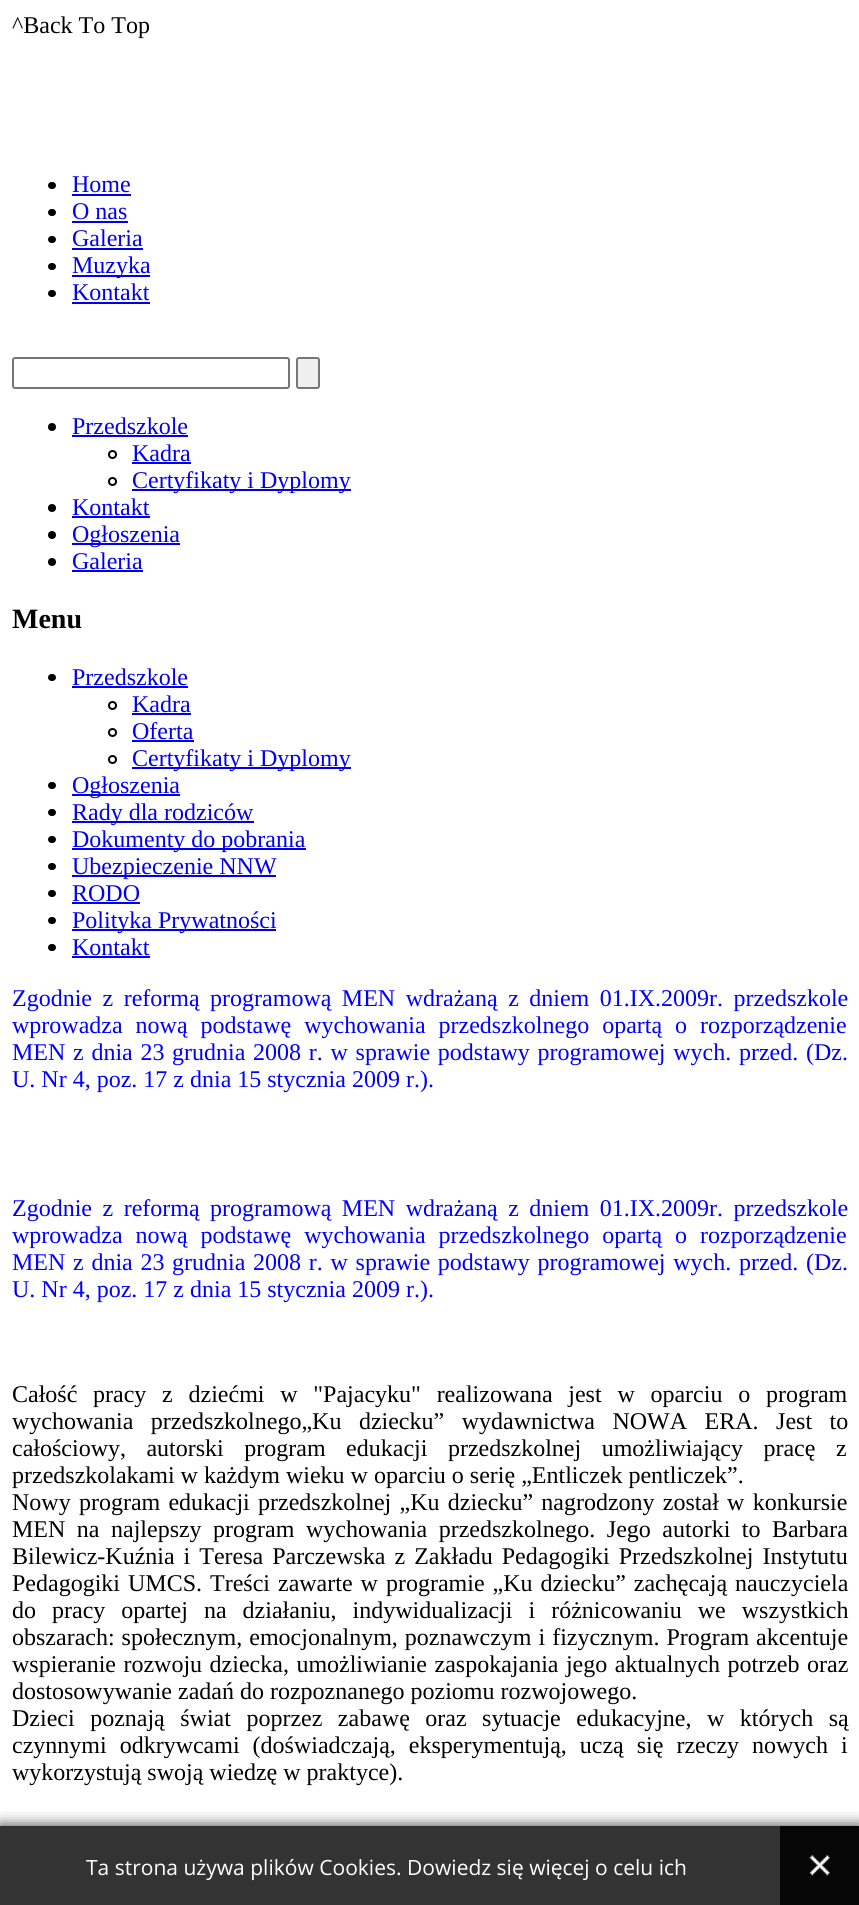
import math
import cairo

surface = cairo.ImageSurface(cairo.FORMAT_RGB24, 859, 1905)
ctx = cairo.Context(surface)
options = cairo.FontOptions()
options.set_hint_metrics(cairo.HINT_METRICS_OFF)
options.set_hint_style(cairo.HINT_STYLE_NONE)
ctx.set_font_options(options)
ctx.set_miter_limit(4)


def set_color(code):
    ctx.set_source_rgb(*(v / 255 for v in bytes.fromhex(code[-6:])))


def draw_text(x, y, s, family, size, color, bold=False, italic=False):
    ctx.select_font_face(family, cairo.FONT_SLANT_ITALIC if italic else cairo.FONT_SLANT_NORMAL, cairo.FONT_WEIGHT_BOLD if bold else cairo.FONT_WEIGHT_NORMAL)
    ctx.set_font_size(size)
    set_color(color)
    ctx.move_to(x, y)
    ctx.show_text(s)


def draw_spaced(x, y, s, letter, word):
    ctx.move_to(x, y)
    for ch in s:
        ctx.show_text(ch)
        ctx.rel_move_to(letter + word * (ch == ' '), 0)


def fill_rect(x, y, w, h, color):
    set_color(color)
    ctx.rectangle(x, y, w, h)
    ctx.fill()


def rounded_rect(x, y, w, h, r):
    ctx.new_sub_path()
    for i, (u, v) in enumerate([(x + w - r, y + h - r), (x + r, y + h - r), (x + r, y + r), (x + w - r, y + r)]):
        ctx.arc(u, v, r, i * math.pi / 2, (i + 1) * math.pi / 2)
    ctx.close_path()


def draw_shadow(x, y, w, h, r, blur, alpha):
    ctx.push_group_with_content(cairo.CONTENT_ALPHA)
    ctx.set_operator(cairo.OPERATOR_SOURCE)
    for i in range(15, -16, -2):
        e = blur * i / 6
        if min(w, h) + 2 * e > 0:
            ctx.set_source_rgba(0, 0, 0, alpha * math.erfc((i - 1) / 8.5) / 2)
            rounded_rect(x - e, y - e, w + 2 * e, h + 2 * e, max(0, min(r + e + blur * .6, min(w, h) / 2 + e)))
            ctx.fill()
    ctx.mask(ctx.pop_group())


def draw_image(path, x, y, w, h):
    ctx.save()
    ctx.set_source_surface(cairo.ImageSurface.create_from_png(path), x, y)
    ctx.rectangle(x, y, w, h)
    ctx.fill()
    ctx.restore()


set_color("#ffffff")
ctx.paint()
draw_text(12, 33, "^Back To Top", "Liberation Serif", 24, "#000000")
rounded_rect(48, 182, 8, 7, 3.5)
ctx.fill()
draw_text(72, 192, "Home", "Liberation Serif", 24, "#0000ee")
fill_rect(72, 194, 59, 2, "#0000ee")
set_color("#000000")
rounded_rect(48, 209, 8, 7, 3.5)
ctx.fill()
draw_text(72, 219, "O nas", "Liberation Serif", 24, "#0000ee")
fill_rect(72, 221, 56, 2, "#0000ee")
set_color("#000000")
rounded_rect(48, 236, 8, 7, 3.5)
ctx.fill()
draw_text(72, 246, "Galeria", "Liberation Serif", 24, "#0000ee")
fill_rect(72, 248, 71, 2, "#0000ee")
set_color("#000000")
rounded_rect(48, 263, 8, 7, 3.5)
ctx.fill()
fill_rect(72, 275, 78, 2, "#0000ee")
draw_text(72, 273, "Muzyka", "Liberation Serif", 24, "#0000ee")
set_color("#000000")
rounded_rect(48, 290, 8, 7, 3.5)
ctx.fill()
draw_text(72, 300, "Kontakt", "Liberation Serif", 24, "#0000ee")
fill_rect(72, 302, 78, 2, "#0000ee")
rounded_rect(13, 358, 276, 30, 2)
set_color("#767676")
ctx.stroke()
set_color("#efefef")
rounded_rect(297, 358, 22, 30, 2)
ctx.fill_preserve()
set_color("#767676")
ctx.stroke()
set_color("#000000")
ctx.arc(52, 427, 4, 0, 2 * math.pi)
ctx.fill()
draw_text(72, 434, "Przedszkole", "Liberation Serif", 24, "#0000ee")
fill_rect(72, 435, 116, 2, "#0000ee")
ctx.new_path()
ctx.arc(112.5, 454.5, 3.5, 0, 2 * math.pi)
set_color("#000000")
ctx.stroke()
draw_text(132, 461, "Kadra", "Liberation Serif", 24, "#0000ee")
fill_rect(132, 462, 59, 2, "#0000ee")
ctx.new_path()
ctx.arc(112.5, 481.5, 3.5, 0, 2 * math.pi)
set_color("#000000")
ctx.stroke()
fill_rect(132, 489, 219, 2, "#0000ee")
draw_text(132, 488, "Certyfikaty i Dyplomy", "Liberation Serif", 24, "#0000ee")
set_color("#000000")
ctx.new_path()
ctx.arc(52, 508, 4, 0, 2 * math.pi)
ctx.fill()
draw_text(72, 515, "Kontakt", "Liberation Serif", 24, "#0000ee")
fill_rect(72, 516, 78, 2, "#0000ee")
set_color("#000000")
ctx.new_path()
ctx.arc(52, 535, 4, 0, 2 * math.pi)
ctx.fill()
fill_rect(72, 543, 108, 2, "#0000ee")
draw_text(72, 542, "Ogłoszenia", "Liberation Serif", 24, "#0000ee")
set_color("#000000")
ctx.new_path()
ctx.arc(52, 562, 4, 0, 2 * math.pi)
ctx.fill()
draw_text(72, 569, "Galeria", "Liberation Serif", 24, "#0000ee")
fill_rect(72, 570, 71, 2, "#0000ee")
draw_text(12, 628, "Menu", "Liberation Serif", 28, "#000000", bold=True)
rounded_rect(48, 674, 8, 7, 3.5)
ctx.fill()
draw_text(72, 685, "Przedszkole", "Liberation Serif", 24, "#0000ee")
fill_rect(72, 686, 116, 2, "#0000ee")
ctx.new_path()
ctx.arc(112.5, 705.5, 3.5, 0, 2 * math.pi)
set_color("#000000")
ctx.stroke()
draw_text(132, 712, "Kadra", "Liberation Serif", 24, "#0000ee")
fill_rect(132, 713, 59, 2, "#0000ee")
ctx.new_path()
ctx.arc(112.5, 732.5, 3.5, 0, 2 * math.pi)
set_color("#000000")
ctx.stroke()
draw_text(132, 739, "Oferta", "Liberation Serif", 24, "#0000ee")
fill_rect(132, 740, 62, 2, "#0000ee")
ctx.new_path()
ctx.arc(112.5, 759.5, 3.5, 0, 2 * math.pi)
set_color("#000000")
ctx.stroke()
fill_rect(132, 767, 219, 2, "#0000ee")
draw_text(132, 766, "Certyfikaty i Dyplomy", "Liberation Serif", 24, "#0000ee")
set_color("#000000")
rounded_rect(48, 782, 8, 7, 3.5)
ctx.fill()
fill_rect(72, 794, 108, 2, "#0000ee")
draw_text(72, 793, "Ogłoszenia", "Liberation Serif", 24, "#0000ee")
set_color("#000000")
rounded_rect(48, 809, 8, 7, 3.5)
ctx.fill()
fill_rect(72, 821, 182, 2, "#0000ee")
draw_text(72, 820, "Rady dla rodziców", "Liberation Serif", 24, "#0000ee")
set_color("#000000")
rounded_rect(48, 836, 8, 7, 3.5)
ctx.fill()
fill_rect(72, 848, 234, 2, "#0000ee")
draw_text(72, 847, "Dokumenty do pobrania", "Liberation Serif", 24, "#0000ee")
set_color("#000000")
rounded_rect(48, 863, 8, 7, 3.5)
ctx.fill()
fill_rect(72, 875, 204, 2, "#0000ee")
draw_text(72, 874, "Ubezpieczenie NNW", "Liberation Serif", 24, "#0000ee")
set_color("#000000")
rounded_rect(48, 890, 8, 7, 3.5)
ctx.fill()
draw_text(72, 901, "RODO", "Liberation Serif", 24, "#0000ee")
fill_rect(72, 902, 68, 2, "#0000ee")
set_color("#000000")
rounded_rect(48, 917, 8, 7, 3.5)
ctx.fill()
fill_rect(72, 929, 204, 2, "#0000ee")
draw_text(72, 928, "Polityka Prywatności", "Liberation Serif", 24, "#0000ee")
set_color("#000000")
rounded_rect(48, 944, 8, 7, 3.5)
ctx.fill()
draw_text(72, 955, "Kontakt", "Liberation Serif", 24, "#0000ee")
fill_rect(72, 956, 78, 2, "#0000ee")
set_color("#0000ff")
draw_spaced(12, 1006, "Zgodnie z reformą programową MEN wdrażaną z dniem 01.IX.2009r. przedszkole", 0, 4.5)
draw_spaced(12, 1033, "wprowadza nową podstawę wychowania przedszkolnego opartą o rozporządzenie", 0, 7)
draw_spaced(12, 1060, "MEN z dnia 23 grudnia 2008 r. w sprawie podstawy programowej wych. przed. (Dz.", 0, 1.7)
draw_text(12, 1087, "U. Nr 4, poz. 17 z dnia 15 stycznia 2009 r.).", "Liberation Serif", 24, "#0000ff")
draw_spaced(12, 1216, "Zgodnie z reformą programową MEN wdrażaną z dniem 01.IX.2009r. przedszkole", 0, 4.5)
draw_spaced(12, 1243, "wprowadza nową podstawę wychowania przedszkolnego opartą o rozporządzenie", 0, 7)
draw_spaced(12, 1270, "MEN z dnia 23 grudnia 2008 r. w sprawie podstawy programowej wych. przed. (Dz.", 0, 1.7)
draw_text(12, 1297, "U. Nr 4, poz. 17 z dnia 15 stycznia 2009 r.).", "Liberation Serif", 24, "#0000ff")
set_color("#000000")
draw_spaced(12, 1402, "Całość pracy z dziećmi w \"Pajacyku\" realizowana jest w oparciu o program", 0, 9.75)
draw_spaced(12, 1429, "wychowania przedszkolnego„Ku dziecku” wydawnictwa NOWA ERA. Jest to", 0, 11.5)
draw_spaced(12, 1456, "całościowy, autorski program edukacji przedszkolnej umożliwiający pracę z", 0, 14.5)
draw_text(12, 1483, "przedszkolakami w każdym wieku w oparciu o serię „Entliczek pentliczek”.", "Liberation Serif", 24, "#000000")
draw_spaced(12, 1510, "Nowy program edukacji przedszkolnej „Ku dziecku” nagrodzony został w konkursie", 0, 2.25)
draw_spaced(12, 1537, "MEN na najlepszy program wychowania przedszkolnego. Jego autorki to Barbara", 0, 5.5)
draw_spaced(12, 1564, "Bilewicz-Kuźnia i Teresa Parczewska z Zakładu Pedagogiki Przedszkolnej Instytutu", 0, 3)
draw_spaced(12, 1591, "Pedagogiki UMCS. Treści zawarte w programie „Ku dziecku” zachęcają nauczyciela", 0, 2)
draw_spaced(12, 1618, "do pracy opartej na działaniu, indywidualizacji i różnicowaniu we wszystkich", 0, 10)
draw_spaced(12, 1645, "obszarach: społecznym, emocjonalnym, poznawczym i fizycznym. Program akcentuje", 0, 1)
draw_spaced(12, 1672, "wspieranie rozwoju dziecka, umożliwianie zaspokajania jego aktualnych potrzeb oraz", 0, 1.5)
draw_text(12, 1699, "dostosowywanie zadań do rozpoznanego poziomu rozwojowego.", "Liberation Serif", 24, "#000000")
draw_spaced(12, 1726, "Dzieci poznają świat poprzez zabawę oraz sytuacje edukacyjne, w których są", 0, 9.5)
draw_spaced(12, 1753, "czynnymi odkrywcami (doświadczają, eksperymentują, uczą się rzeczy nowych i", 0, 7)
draw_text(12, 1780, "wykorzystują swoją wiedzę w praktyce).", "Liberation Serif", 24, "#000000")
ctx.save()
ctx.rectangle(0, 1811, 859, 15)
ctx.clip()
set_color("#000000")
draw_shadow(0, 1826, 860, 79, 0, 7.5, 0.8)
ctx.restore()
ctx.set_source_rgba(0, 0, 0, 0.8)
ctx.rectangle(0, 1826, 780, 79)
ctx.fill()
draw_text(86, 1875, "Ta strona używa plików Cookies. Dowiedz się więcej o celu ich", "Open Sans", 21, "#ffffff")
fill_rect(780, 1826, 79, 79, "#060606")
draw_image("assets/img1.png", 809, 1855, 21, 21)
surface.write_to_png("output.png")
